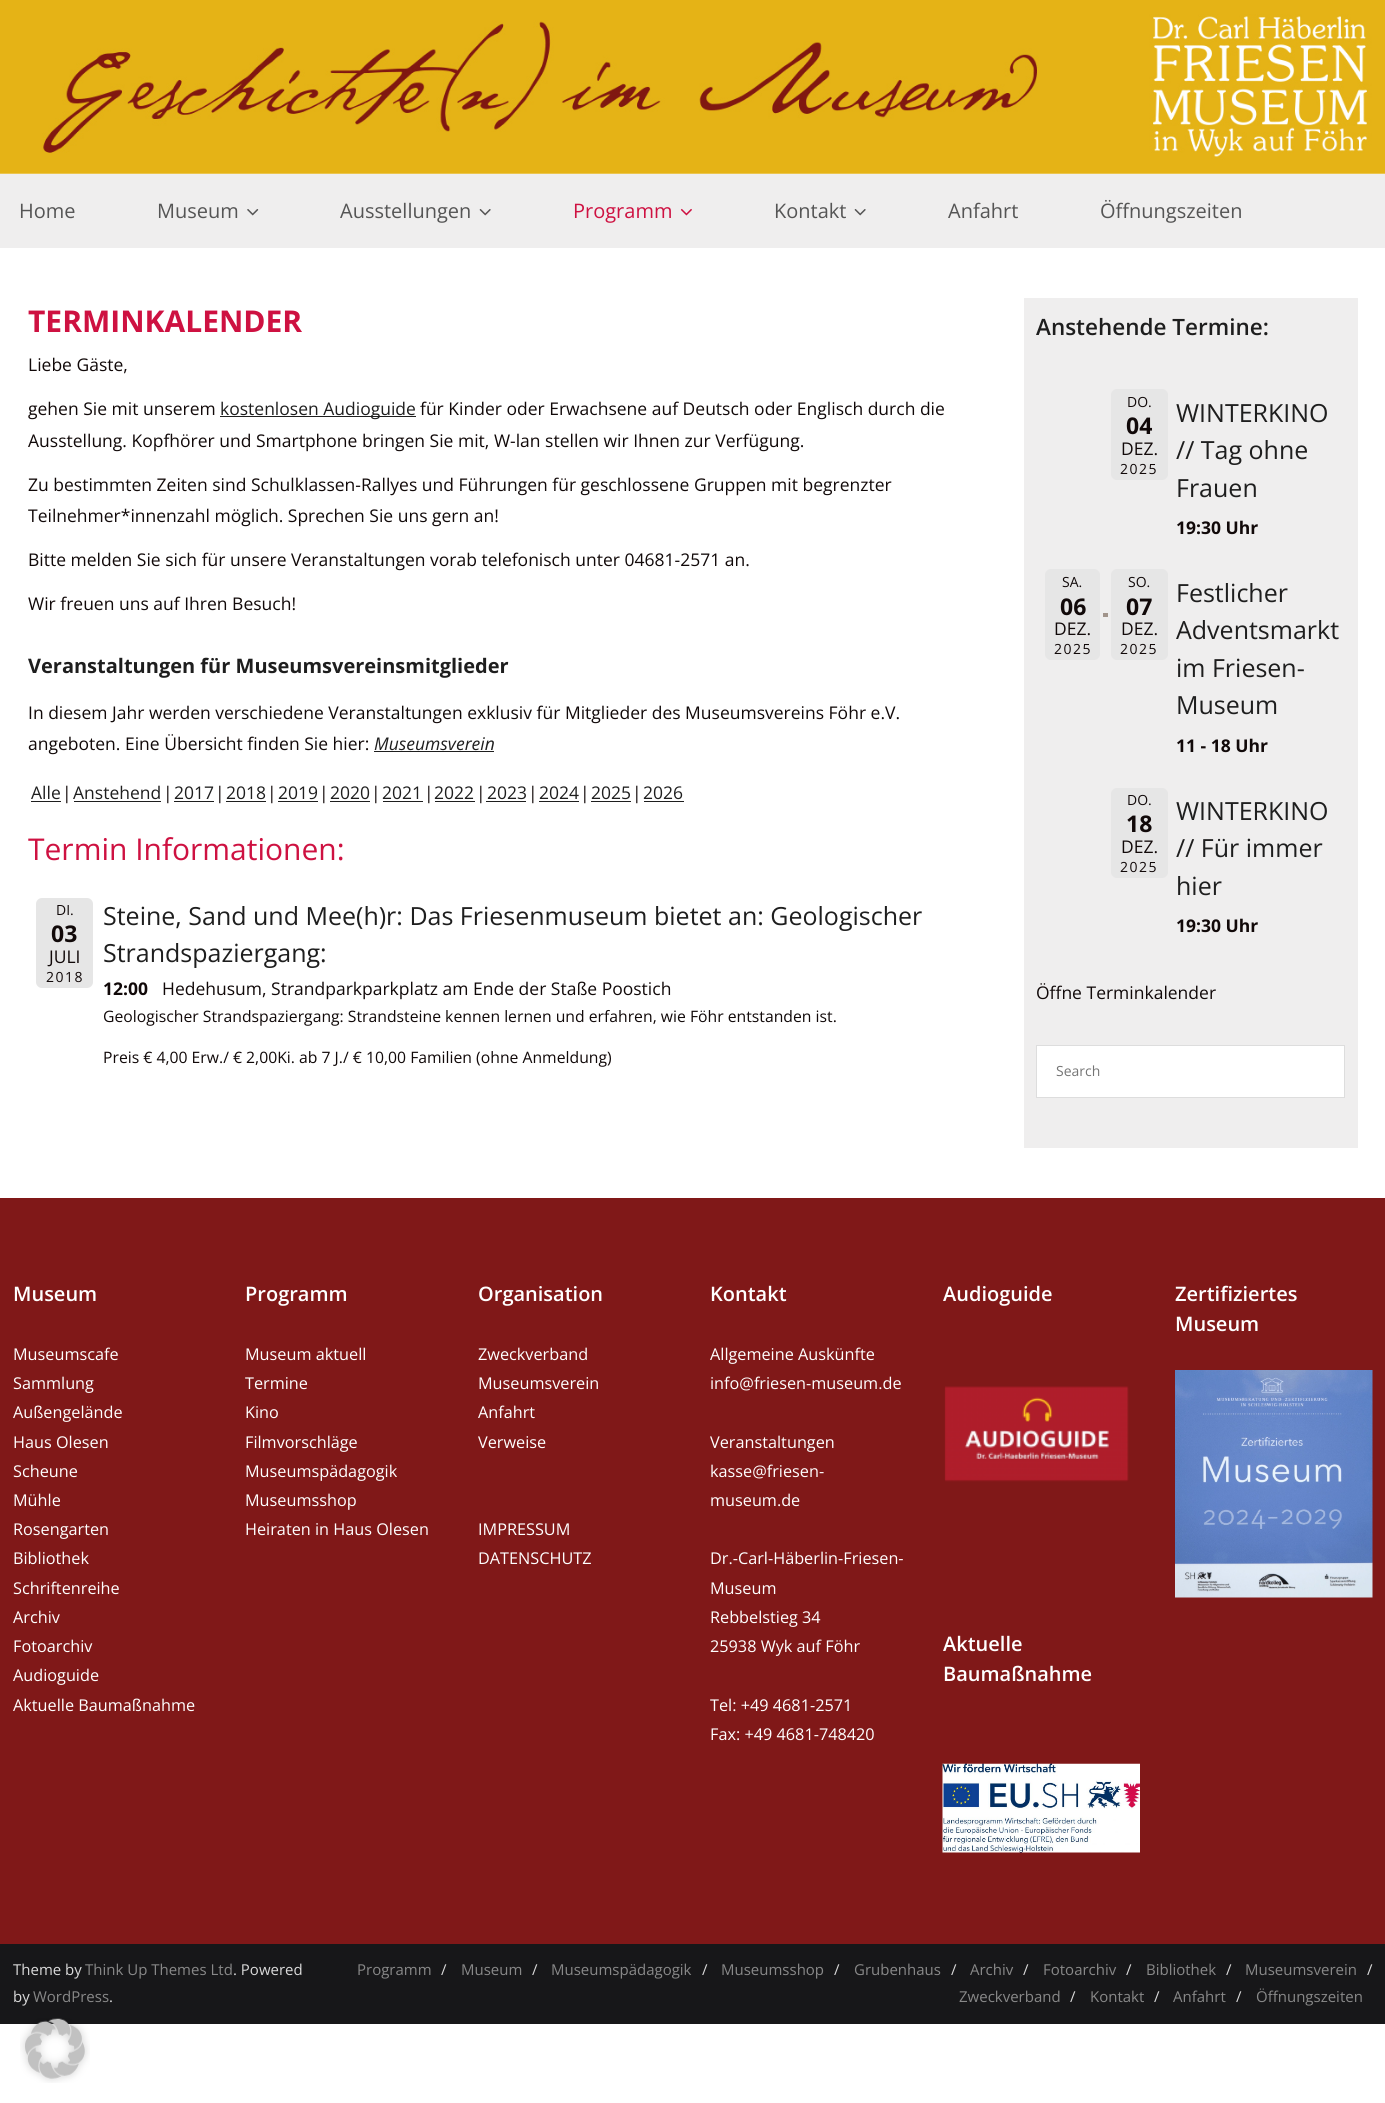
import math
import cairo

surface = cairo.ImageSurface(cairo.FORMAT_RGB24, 1385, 2103)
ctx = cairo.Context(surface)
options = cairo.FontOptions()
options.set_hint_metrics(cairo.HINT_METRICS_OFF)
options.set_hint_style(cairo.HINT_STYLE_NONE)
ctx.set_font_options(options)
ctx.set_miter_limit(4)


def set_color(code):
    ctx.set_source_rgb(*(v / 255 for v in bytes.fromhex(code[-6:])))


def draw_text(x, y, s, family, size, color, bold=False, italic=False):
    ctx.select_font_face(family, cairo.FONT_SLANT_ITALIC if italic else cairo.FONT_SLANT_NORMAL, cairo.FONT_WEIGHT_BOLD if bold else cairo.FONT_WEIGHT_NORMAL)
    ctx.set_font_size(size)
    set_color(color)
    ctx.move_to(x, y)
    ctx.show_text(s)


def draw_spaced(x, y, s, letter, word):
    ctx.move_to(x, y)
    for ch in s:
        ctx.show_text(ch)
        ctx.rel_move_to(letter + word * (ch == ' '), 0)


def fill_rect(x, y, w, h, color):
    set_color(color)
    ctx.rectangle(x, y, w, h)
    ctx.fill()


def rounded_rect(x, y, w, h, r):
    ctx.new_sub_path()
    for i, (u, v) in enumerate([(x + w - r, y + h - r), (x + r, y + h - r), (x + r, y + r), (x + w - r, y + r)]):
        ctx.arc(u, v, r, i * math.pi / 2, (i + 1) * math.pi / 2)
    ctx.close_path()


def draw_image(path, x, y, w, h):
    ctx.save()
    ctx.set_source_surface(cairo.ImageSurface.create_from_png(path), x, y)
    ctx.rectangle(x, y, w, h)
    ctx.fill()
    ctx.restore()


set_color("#ffffff")
ctx.paint()
draw_image("assets/img1.png", 0, 0, 1385, 174)
fill_rect(0, 174, 1385, 74, "#efeeee")
draw_text(19, 218, "Home", "Open Sans", 20, "#555555")
draw_text(157, 218, "Museum", "Open Sans", 20, "#555555")
draw_image("assets/img2.png", 247, 209, 12, 7)
draw_text(340, 218, "Ausstellungen", "Open Sans", 20, "#555555")
draw_image("assets/img3.png", 479, 209, 12, 7)
draw_text(573, 218, "Programm", "Open Sans", 20, "#ce1141")
draw_image("assets/img4.png", 680, 208, 12, 8)
draw_text(774, 218, "Kontakt", "Open Sans", 20, "#555555")
draw_image("assets/img3.png", 854, 209, 12, 7)
draw_text(948, 218, "Anfahrt", "Open Sans", 20, "#555555")
draw_text(1100, 218, "Öffnungszeiten", "Open Sans", 20, "#555555")
draw_text(28, 332, "TERMINKALENDER", "Open Sans", 30, "#ce1141", bold=True)
draw_text(28, 371, "Liebe Gäste,", "Open Sans", 17.5, "#110909")
draw_text(28, 415, "gehen Sie mit unserem", "Open Sans", 17.5, "#110909")
fill_rect(220, 416, 196, 1, "#1e1e1e")
draw_text(220, 415, "kostenlosen Audioguide", "Open Sans", 17.5, "#1e1e1e")
draw_text(420, 415, "für Kinder oder Erwachsene auf Deutsch oder Englisch durch die", "Open Sans", 17.5, "#110909")
draw_text(28, 447, "Ausstellung. Kopfhörer und Smartphone bringen Sie mit, W-lan stellen wir Ihnen zur Verfügung.", "Open Sans", 17.5, "#110909")
draw_text(28, 491, "Zu bestimmten Zeiten sind Schulklassen-Rallyes und Führungen für geschlossene Gruppen mit begrenzter", "Open Sans", 17.5, "#110909")
draw_text(28, 522, "Teilnehmer*innenzahl möglich. Sprechen Sie uns gern an!", "Open Sans", 17.5, "#110909")
draw_text(28, 566, "Bitte melden Sie sich für unsere Veranstaltungen vorab telefonisch unter 04681-2571 an.", "Open Sans", 17.5, "#110909")
draw_text(28, 610, "Wir freuen uns auf Ihren Besuch!", "Open Sans", 17.5, "#110909")
draw_text(28, 673, "Veranstaltungen für Museumsvereinsmitglieder", "Open Sans", 20, "#1e1e1e", bold=True)
draw_text(28, 719, "In diesem Jahr werden verschiedene Veranstaltungen exklusiv für Mitglieder des Museumsvereins Föhr e.V.", "Open Sans", 17.5, "#110909")
draw_text(28, 750, "angeboten. Eine Übersicht finden Sie hier:", "Open Sans", 17.5, "#110909")
draw_text(374, 750, "Museumsverein", "Open Sans", 17.5, "#1e1e1e", italic=True)
fill_rect(374, 751, 120, 1, "#1e1e1e")
draw_text(31, 799, "Alle", "Open Sans", 17.5, "#1e1e1e")
fill_rect(31, 801, 30, 1, "#1e1e1e")
draw_text(62, 799, "|", "Open Sans", 17.5, "#110909")
draw_text(73, 799, "Anstehend", "Open Sans", 17.5, "#1e1e1e")
fill_rect(74, 801, 87, 1, "#1e1e1e")
draw_text(163, 799, "|", "Open Sans", 17.5, "#110909")
draw_text(174, 799, "2017", "Open Sans", 17.5, "#1e1e1e")
fill_rect(174, 801, 40, 1, "#1e1e1e")
draw_text(215, 799, "|", "Open Sans", 17.5, "#110909")
draw_text(226, 799, "2018", "Open Sans", 17.5, "#1e1e1e")
fill_rect(226, 801, 40, 1, "#1e1e1e")
draw_text(267, 799, "|", "Open Sans", 17.5, "#110909")
draw_text(278, 799, "2019", "Open Sans", 17.5, "#1e1e1e")
fill_rect(278, 801, 40, 1, "#1e1e1e")
draw_text(319, 799, "|", "Open Sans", 17.5, "#110909")
draw_text(330, 799, "2020", "Open Sans", 17.5, "#1e1e1e")
fill_rect(330, 801, 40, 1, "#1e1e1e")
draw_text(371, 799, "|", "Open Sans", 17.5, "#110909")
draw_text(382, 799, "2021", "Open Sans", 17.5, "#1e1e1e")
fill_rect(383, 801, 40, 1, "#1e1e1e")
draw_text(424, 799, "|", "Open Sans", 17.5, "#110909")
draw_text(434, 799, "2022", "Open Sans", 17.5, "#1e1e1e")
fill_rect(435, 801, 40, 1, "#1e1e1e")
draw_text(476, 799, "|", "Open Sans", 17.5, "#110909")
draw_text(487, 799, "2023", "Open Sans", 17.5, "#1e1e1e")
fill_rect(486, 801, 40, 1, "#1e1e1e")
draw_text(528, 799, "|", "Open Sans", 17.5, "#110909")
draw_text(539, 799, "2024", "Open Sans", 17.5, "#1e1e1e")
fill_rect(539, 801, 40, 1, "#1e1e1e")
draw_text(580, 799, "|", "Open Sans", 17.5, "#110909")
draw_text(591, 799, "2025", "Open Sans", 17.5, "#1e1e1e")
fill_rect(591, 801, 40, 1, "#1e1e1e")
draw_text(632, 799, "|", "Open Sans", 17.5, "#110909")
draw_text(643, 799, "2026", "Open Sans", 17.5, "#1e1e1e")
fill_rect(644, 801, 40, 1, "#1e1e1e")
draw_text(28, 860, "Termin Informationen:", "Open Sans", 30, "#ce1141")
set_color("#e6e6e6")
rounded_rect(36, 898, 57, 90, 6)
ctx.fill()
draw_text(56, 915, "DI.", "Open Sans", 14, "#110909")
draw_text(51, 942, "03", "Open Sans", 23, "#110909", bold=True)
draw_text(49, 963, "JULI", "Open Sans", 17.5, "#110909")
ctx.set_font_size(14)
draw_spaced(46, 982, "2018", 1.5, 0)
draw_text(103, 925, "Steine, Sand und Mee(h)r: Das Friesenmuseum bietet an: Geologischer", "Open Sans", 25, "#1e1e1e")
draw_text(103, 962, "Strandspaziergang:", "Open Sans", 25, "#1e1e1e")
draw_text(103, 995, "12:00", "Open Sans", 17.5, "#110909", bold=True)
draw_text(162, 995, "Hedehusum, Strandparkparkplatz am Ende der Staße Poostich", "Open Sans", 17.5, "#110909")
draw_text(103, 1022, "Geologischer Strandspaziergang: Strandsteine kennen lernen und erfahren, wie Föhr entstanden ist.", "Open Sans", 15.75, "#110909")
draw_text(103, 1063, "Preis € 4,00 Erw./ € 2,00Ki. ab 7 J./ € 10,00 Familien (ohne Anmeldung)", "Open Sans", 15.75, "#110909")
fill_rect(1024, 298, 334, 850, "#efeeee")
draw_text(1036, 335, "Anstehende Termine:", "Open Sans SemiBold", 22.5, "#1e1e1e")
set_color("#e6e6e6")
rounded_rect(1111, 389, 57, 91, 6)
ctx.fill()
draw_text(1127, 407, "DO.", "Open Sans", 14, "#110909")
draw_text(1126, 434, "04", "Open Sans", 23, "#110909", bold=True)
draw_text(1121, 455, "DEZ.", "Open Sans", 17.5, "#110909")
ctx.set_font_size(14)
draw_spaced(1120, 474, "2025", 1.5, 0)
draw_text(1176, 422, "WINTERKINO", "Open Sans", 25, "#1e1e1e")
draw_text(1176, 459, "// Tag ohne", "Open Sans", 25, "#1e1e1e")
draw_text(1176, 497, "Frauen", "Open Sans", 25, "#1e1e1e")
draw_text(1176, 534, "19:30 Uhr", "Open Sans", 17.5, "#110909", bold=True)
fill_rect(1103, 613, 5, 4, "#a1948b")
set_color("#e6e6e6")
rounded_rect(1045, 569, 55, 91, 6)
ctx.fill()
draw_text(1062, 587, "SA.", "Open Sans", 14, "#110909")
draw_text(1060, 615, "06", "Open Sans", 23, "#110909", bold=True)
draw_text(1054, 635, "DEZ.", "Open Sans", 17.5, "#110909")
ctx.set_font_size(14)
draw_spaced(1054, 654, "2025", 1.5, 0)
set_color("#e6e6e6")
rounded_rect(1111, 569, 57, 91, 6)
ctx.fill()
draw_text(1128, 587, "SO.", "Open Sans", 14, "#110909")
draw_text(1126, 615, "07", "Open Sans", 23, "#110909", bold=True)
draw_text(1121, 635, "DEZ.", "Open Sans", 17.5, "#110909")
ctx.set_font_size(14)
draw_spaced(1120, 654, "2025", 1.5, 0)
draw_text(1176, 602, "Festlicher", "Open Sans", 25, "#1e1e1e")
draw_text(1176, 639, "Adventsmarkt", "Open Sans", 25, "#1e1e1e")
draw_text(1176, 677, "im Friesen-", "Open Sans", 25, "#1e1e1e")
draw_text(1176, 714, "Museum", "Open Sans", 25, "#1e1e1e")
draw_text(1176, 752, "11 - 18 Uhr", "Open Sans", 17.5, "#110909", bold=True)
set_color("#e6e6e6")
rounded_rect(1111, 788, 57, 90, 6)
ctx.fill()
draw_text(1127, 805, "DO.", "Open Sans", 14, "#110909")
draw_text(1126, 832, "18", "Open Sans", 23, "#110909", bold=True)
draw_text(1121, 853, "DEZ.", "Open Sans", 17.5, "#110909")
ctx.set_font_size(14)
draw_spaced(1120, 872, "2025", 1.5, 0)
draw_text(1176, 820, "WINTERKINO", "Open Sans", 25, "#1e1e1e")
draw_text(1176, 857, "// Für immer", "Open Sans", 25, "#1e1e1e")
draw_text(1176, 895, "hier", "Open Sans", 25, "#1e1e1e")
draw_text(1176, 932, "19:30 Uhr", "Open Sans", 17.5, "#110909", bold=True)
draw_text(1036, 999, "Öffne Terminkalender", "Open Sans", 17.5, "#110909")
set_color("#ffffff")
ctx.rectangle(1036.5, 1045.5, 308, 52)
ctx.fill_preserve()
set_color("#dddddd")
ctx.set_line_width(1)
ctx.stroke()
draw_text(1056, 1076, "Search", "Open Sans", 14, "#757575")
fill_rect(0, 1198, 1385, 746, "#801818")
draw_text(13, 1301, "Museum", "Open Sans SemiBold", 20, "#ffffff")
draw_text(13, 1360, "Museumscafe", "Open Sans", 16.25, "#ffffff")
draw_text(13, 1389, "Sammlung", "Open Sans", 16.25, "#ffffff")
draw_text(13, 1418, "Außengelände", "Open Sans", 16.25, "#ffffff")
draw_text(13, 1448, "Haus Olesen", "Open Sans", 16.25, "#ffffff")
draw_text(13, 1477, "Scheune", "Open Sans", 16.25, "#ffffff")
draw_text(13, 1506, "Mühle", "Open Sans", 16.25, "#ffffff")
draw_text(13, 1535, "Rosengarten", "Open Sans", 16.25, "#ffffff")
draw_text(13, 1564, "Bibliothek", "Open Sans", 16.25, "#ffffff")
draw_text(13, 1594, "Schriftenreihe", "Open Sans", 16.25, "#ffffff")
draw_text(13, 1623, "Archiv", "Open Sans", 16.25, "#ffffff")
draw_text(13, 1652, "Fotoarchiv", "Open Sans", 16.25, "#ffffff")
draw_text(13, 1681, "Audioguide", "Open Sans", 16.25, "#ffffff")
draw_text(13, 1711, "Aktuelle Baumaßnahme", "Open Sans", 16.25, "#ffffff")
draw_text(245, 1301, "Programm", "Open Sans SemiBold", 20, "#ffffff")
draw_text(245, 1360, "Museum aktuell", "Open Sans", 16.25, "#ffffff")
draw_text(245, 1389, "Termine", "Open Sans", 16.25, "#ffffff")
draw_text(245, 1418, "Kino", "Open Sans", 16.25, "#ffffff")
draw_text(245, 1448, "Filmvorschläge", "Open Sans", 16.25, "#ffffff")
draw_text(245, 1477, "Museumspädagogik", "Open Sans", 16.25, "#ffffff")
draw_text(245, 1506, "Museumsshop", "Open Sans", 16.25, "#ffffff")
draw_text(245, 1535, "Heiraten in Haus Olesen", "Open Sans", 16.25, "#ffffff")
draw_text(478, 1301, "Organisation", "Open Sans SemiBold", 20, "#ffffff")
draw_text(478, 1360, "Zweckverband", "Open Sans", 16.25, "#ffffff")
draw_text(478, 1389, "Museumsverein", "Open Sans", 16.25, "#ffffff")
draw_text(478, 1418, "Anfahrt", "Open Sans", 16.25, "#ffffff")
draw_text(478, 1448, "Verweise", "Open Sans", 16.25, "#ffffff")
draw_text(478, 1535, "IMPRESSUM", "Open Sans", 16.25, "#ffffff")
draw_text(478, 1564, "DATENSCHUTZ", "Open Sans", 16.25, "#ffffff")
draw_text(710, 1301, "Kontakt", "Open Sans SemiBold", 20, "#ffffff")
draw_text(710, 1360, "Allgemeine Auskünfte", "Open Sans", 16.25, "#ffffff")
draw_text(710, 1389, "info@friesen-museum.de", "Open Sans", 16.25, "#ffffff")
draw_text(710, 1448, "Veranstaltungen", "Open Sans", 16.25, "#ffffff")
draw_text(710, 1477, "kasse@friesen-", "Open Sans", 16.25, "#ffffff")
draw_text(710, 1506, "museum.de", "Open Sans", 16.25, "#ffffff")
draw_text(710, 1564, "Dr.-Carl-Häberlin-Friesen-", "Open Sans", 16.25, "#ffffff")
draw_text(710, 1594, "Museum", "Open Sans", 16.25, "#ffffff")
draw_text(710, 1623, "Rebbelstieg 34", "Open Sans", 16.25, "#ffffff")
draw_text(710, 1652, "25938 Wyk auf Föhr", "Open Sans", 16.25, "#ffffff")
draw_text(710, 1711, "Tel: +49 4681-2571", "Open Sans", 16.25, "#ffffff")
draw_text(710, 1740, "Fax: +49 4681-748420", "Open Sans", 16.25, "#ffffff")
draw_text(943, 1301, "Audioguide", "Open Sans SemiBold", 20, "#ffffff")
draw_image("assets/img5.png", 944, 1386, 185, 96)
draw_text(943, 1651, "Aktuelle", "Open Sans SemiBold", 20, "#ffffff")
draw_text(943, 1681, "Baumaßnahme", "Open Sans SemiBold", 20, "#ffffff")
draw_image("assets/img6.png", 942, 1763, 198, 90)
draw_text(1175, 1301, "Zertifiziertes", "Open Sans SemiBold", 20, "#ffffff")
draw_text(1175, 1331, "Museum", "Open Sans SemiBold", 20, "#ffffff")
draw_image("assets/img7.png", 1175, 1370, 198, 228)
fill_rect(0, 1944, 1385, 80, "#171719")
draw_text(13, 1975, "Theme by", "Open Sans", 15, "#dadada")
draw_text(85, 1975, "Think Up Themes Ltd", "Open Sans", 15, "#888888")
draw_text(233, 1975, ". Powered", "Open Sans", 15, "#dadada")
draw_text(13, 2002, "by", "Open Sans", 15, "#dadada")
draw_text(33, 2002, "WordPress", "Open Sans", 15, "#888888")
draw_text(109, 2002, ".", "Open Sans", 15, "#dadada")
draw_text(357, 1975, "Programm", "Open Sans", 15, "#888888")
draw_text(441, 1975, "/", "Open Sans", 15, "#dadada")
draw_text(461, 1975, "Museum", "Open Sans", 15, "#888888")
draw_text(532, 1975, "/", "Open Sans", 15, "#dadada")
draw_text(551, 1975, "Museumspädagogik", "Open Sans", 15, "#888888")
draw_text(702, 1975, "/", "Open Sans", 15, "#dadada")
draw_text(721, 1975, "Museumsshop", "Open Sans", 15, "#888888")
draw_text(834, 1975, "/", "Open Sans", 15, "#dadada")
draw_text(854, 1975, "Grubenhaus", "Open Sans", 15, "#888888")
draw_text(951, 1975, "/", "Open Sans", 15, "#dadada")
draw_text(970, 1975, "Archiv", "Open Sans", 15, "#888888")
draw_text(1023, 1975, "/", "Open Sans", 15, "#dadada")
draw_text(1043, 1975, "Fotoarchiv", "Open Sans", 15, "#888888")
draw_text(1126, 1975, "/", "Open Sans", 15, "#dadada")
draw_text(1146, 1975, "Bibliothek", "Open Sans", 15, "#888888")
draw_text(1226, 1975, "/", "Open Sans", 15, "#dadada")
draw_text(1245, 1975, "Museumsverein", "Open Sans", 15, "#888888")
draw_text(1367, 1975, "/", "Open Sans", 15, "#dadada")
draw_text(959, 2002, "Zweckverband", "Open Sans", 15, "#888888")
draw_text(1070, 2002, "/", "Open Sans", 15, "#dadada")
draw_text(1090, 2002, "Kontakt", "Open Sans", 15, "#888888")
draw_text(1154, 2002, "/", "Open Sans", 15, "#dadada")
draw_text(1173, 2002, "Anfahrt", "Open Sans", 15, "#888888")
draw_text(1236, 2002, "/", "Open Sans", 15, "#dadada")
draw_text(1256, 2002, "Öffnungszeiten", "Open Sans", 15, "#888888")
draw_image("assets/img8.png", 20, 2018, 70, 65)
surface.write_to_png("output.png")
